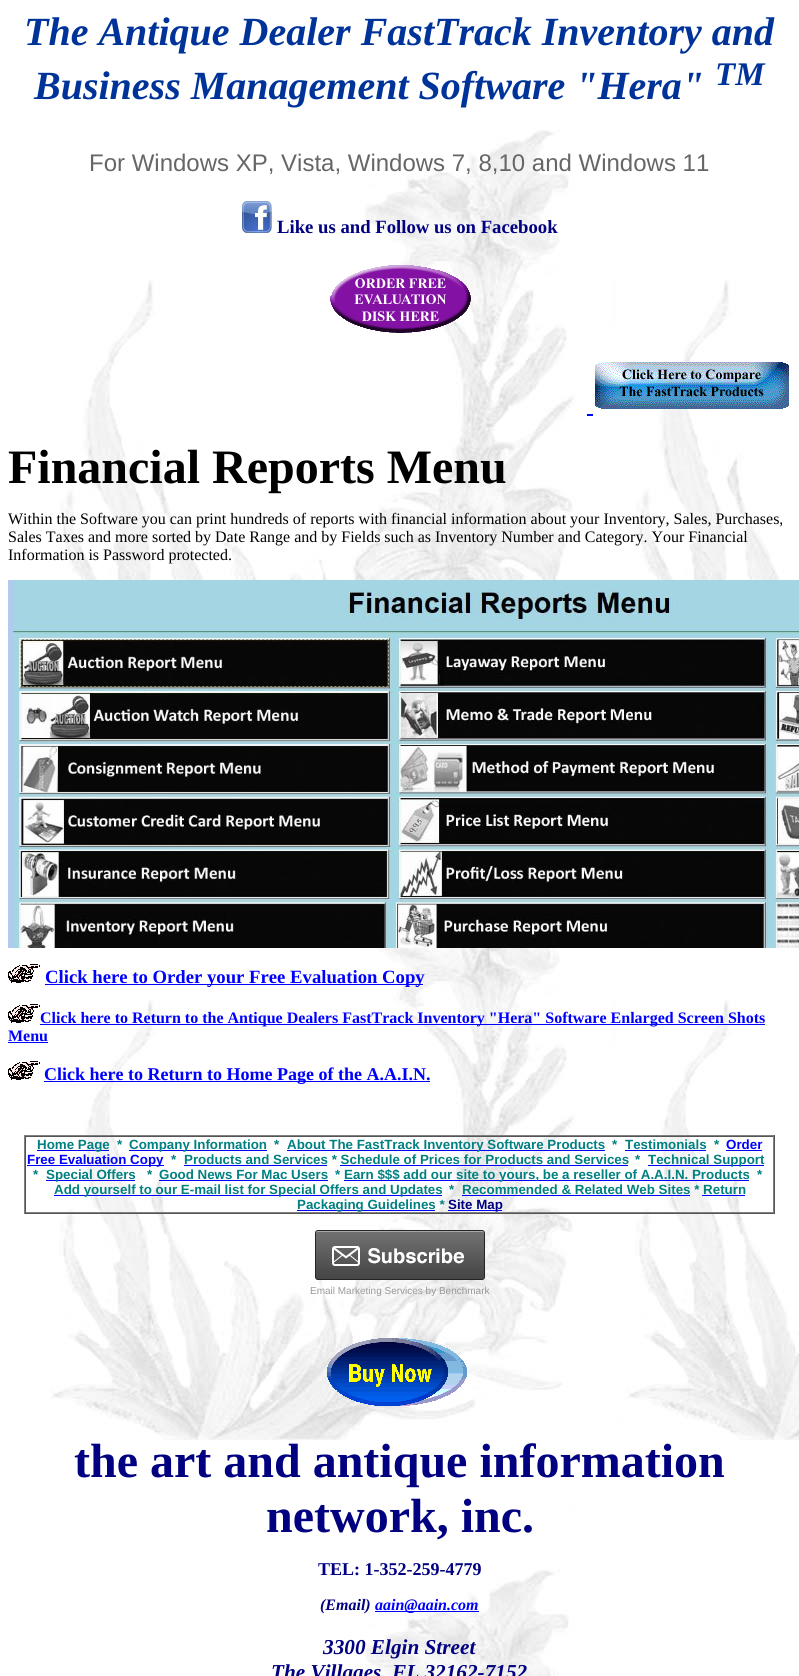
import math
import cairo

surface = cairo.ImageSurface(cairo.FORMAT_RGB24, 799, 1676)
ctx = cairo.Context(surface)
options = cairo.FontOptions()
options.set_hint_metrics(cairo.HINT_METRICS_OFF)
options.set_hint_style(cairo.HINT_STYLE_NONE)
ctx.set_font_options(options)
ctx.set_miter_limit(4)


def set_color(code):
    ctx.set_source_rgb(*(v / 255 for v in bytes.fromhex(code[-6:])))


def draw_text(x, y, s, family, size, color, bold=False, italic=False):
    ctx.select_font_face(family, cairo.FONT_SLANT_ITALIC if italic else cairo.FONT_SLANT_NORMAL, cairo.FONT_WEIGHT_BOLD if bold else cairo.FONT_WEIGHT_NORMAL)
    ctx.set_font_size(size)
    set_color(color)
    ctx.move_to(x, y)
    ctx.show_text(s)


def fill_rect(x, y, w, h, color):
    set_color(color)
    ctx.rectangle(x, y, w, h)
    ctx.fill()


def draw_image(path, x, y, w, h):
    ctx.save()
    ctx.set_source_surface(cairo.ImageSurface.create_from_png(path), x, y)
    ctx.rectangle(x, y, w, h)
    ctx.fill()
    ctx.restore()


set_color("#ffffff")
ctx.paint()
draw_image("assets/img1.png", 51, 130, 748, 1546)
draw_text(24, 45, "The Antique Dealer FastTrack Inventory and", "Liberation Serif", 40, "#003399", bold=True, italic=True)
draw_text(34, 99, "Business Management Software \"Hera\"", "Liberation Serif", 40, "#003399", bold=True, italic=True)
draw_text(715, 85, "TM", "Liberation Serif", 33, "#003399", bold=True, italic=True)
draw_text(89, 171, "For Windows XP, Vista, Windows 7, 8,10 and Windows 11", "Liberation Sans", 24, "#666666")
draw_image("assets/img2.png", 242, 201, 30, 32)
draw_text(277, 233, "Like us and Follow us on Facebook", "Liberation Serif", 18.7, "#000080", bold=True)
draw_image("assets/img3.png", 330, 265, 141, 68)
draw_image("assets/img4.png", 595, 362, 194, 47)
fill_rect(587, 414, 6, 2, "#0000ff")
draw_text(8, 483, "Financial Reports Menu", "Liberation Serif", 48, "#000000", bold=True)
draw_text(8, 524, "Within the Software you can print hundreds of reports with financial information about your Inventory, Sales, Purchases,", "Liberation Serif", 16, "#000000")
draw_text(8, 542, "Sales Taxes and more sorted by Date Range and by Fields such as Inventory Number and Category. Your Financial", "Liberation Serif", 16, "#000000")
draw_text(8, 560, "Information is Password protected.", "Liberation Serif", 16, "#000000")
draw_image("assets/img5.png", 8, 580, 791, 368)
draw_image("assets/img6.png", 8, 964, 32, 19)
fill_rect(45, 984, 378, 1, "#0000ff")
draw_text(45, 983, "Click here to Order your Free Evaluation Copy", "Liberation Serif", 18.7, "#0000ff", bold=True)
draw_image("assets/img6.png", 8, 1004, 32, 19)
fill_rect(40, 1024, 725, 1, "#0000ff")
draw_text(40, 1023, "Click here to Return to the Antique Dealers FastTrack Inventory \"Hera\" Software Enlarged Screen Shots", "Liberation Serif", 16, "#0000ff", bold=True)
draw_text(8, 1041, "Menu", "Liberation Serif", 16, "#0000ff", bold=True)
fill_rect(8, 1042, 40, 1, "#0000ff")
draw_image("assets/img6.png", 8, 1061, 32, 19)
fill_rect(44, 1081, 386, 1, "#0000ff")
draw_text(44, 1080, "Click here to Return to Home Page of the A.A.I.N.", "Liberation Serif", 18, "#0000ff", bold=True)
fill_rect(24, 1135, 751, 1, "#808080")
fill_rect(774, 1135, 1, 79, "#555555")
fill_rect(24, 1213, 751, 1, "#555555")
fill_rect(24, 1135, 1, 79, "#808080")
fill_rect(25, 1136, 749, 1, "#555555")
fill_rect(773, 1136, 1, 77, "#808080")
fill_rect(25, 1212, 749, 1, "#808080")
fill_rect(25, 1136, 1, 77, "#555555")
fill_rect(37, 1150, 72, 1, "#0000ff")
draw_text(37, 1149, "Home Page", "Liberation Sans", 13.35, "#008080", bold=True)
draw_text(117, 1149, "*", "Liberation Sans", 13.35, "#008080", bold=True)
fill_rect(129, 1150, 138, 1, "#0000ff")
draw_text(129, 1149, "Company Information", "Liberation Sans", 13.35, "#008080", bold=True)
draw_text(274, 1149, "*", "Liberation Sans", 13.35, "#008080", bold=True)
fill_rect(287, 1150, 318, 1, "#0000ff")
draw_text(287, 1149, "About The FastTrack Inventory Software Products", "Liberation Sans", 13.35, "#008080", bold=True)
draw_text(612, 1149, "*", "Liberation Sans", 13.35, "#008080", bold=True)
draw_text(625, 1149, "Testimonials", "Liberation Sans", 13.35, "#008080", bold=True)
fill_rect(625, 1150, 81, 1, "#0000ff")
draw_text(714, 1149, "*", "Liberation Sans", 13.35, "#008080", bold=True)
draw_text(726, 1149, "Order", "Liberation Sans", 13.35, "#0000ff", bold=True)
fill_rect(726, 1150, 36, 1, "#0000ff")
fill_rect(27, 1165, 137, 1, "#0000ff")
draw_text(27, 1164, "Free Evaluation Copy", "Liberation Sans", 13.35, "#0000ff", bold=True)
draw_text(171, 1164, "*", "Liberation Sans", 13.35, "#008080", bold=True)
draw_text(184, 1164, "Products and Services * Schedule of Prices for Products and Services", "Liberation Sans", 13.35, "#008080", bold=True)
fill_rect(184, 1165, 143, 1, "#0000ff")
fill_rect(340, 1165, 288, 1, "#0000ff")
draw_text(635, 1164, "*", "Liberation Sans", 13.35, "#008080", bold=True)
fill_rect(648, 1165, 116, 1, "#0000ff")
draw_text(648, 1164, "Technical Support", "Liberation Sans", 13.35, "#008080", bold=True)
draw_text(33, 1179, "*", "Liberation Sans", 13.35, "#008080", bold=True)
fill_rect(46, 1180, 89, 1, "#0000ff")
draw_text(46, 1179, "Special Offers", "Liberation Sans", 13.35, "#008080", bold=True)
draw_text(147, 1179, "*", "Liberation Sans", 13.35, "#008080", bold=True)
draw_text(159, 1179, "Good News For Mac Users", "Liberation Sans", 13.35, "#008080", bold=True)
fill_rect(159, 1180, 169, 1, "#0000ff")
draw_text(335, 1179, "*", "Liberation Sans", 13.35, "#008080", bold=True)
fill_rect(344, 1180, 405, 1, "#0000ff")
draw_text(344, 1179, "Earn $$$ add our site to yours, be a reseller of A.A.I.N. Products", "Liberation Sans", 13.35, "#008080", bold=True)
draw_text(757, 1179, "*", "Liberation Sans", 13.35, "#008080", bold=True)
fill_rect(54, 1195, 388, 1, "#0000ff")
draw_text(54, 1194, "Add yourself to our E-mail list for Special Offers and Updates", "Liberation Sans", 13.35, "#008080", bold=True)
draw_text(449, 1194, "*", "Liberation Sans", 13.35, "#008080", bold=True)
draw_text(462, 1194, "Recommended & Related Web Sites * Return", "Liberation Sans", 13.35, "#008080", bold=True)
fill_rect(462, 1195, 228, 1, "#0000ff")
fill_rect(702, 1195, 43, 1, "#0000ff")
fill_rect(297, 1210, 138, 1, "#0000ff")
draw_text(297, 1209, "Packaging Guidelines *", "Liberation Sans", 13.35, "#008080", bold=True)
fill_rect(448, 1210, 54, 1, "#0000ff")
draw_text(448, 1209, "Site Map", "Liberation Sans", 13.35, "#000080", bold=True)
draw_image("assets/img7.png", 315, 1230, 170, 50)
draw_text(310, 1294, "Email Marketing Services by Benchmark", "Liberation Sans", 10, "#999999")
draw_image("assets/img8.png", 327, 1338, 140, 68)
draw_text(74, 1477, "the art and antique information", "Liberation Serif", 48, "#000080", bold=True)
draw_text(266, 1532, "network, inc.", "Liberation Serif", 48, "#000080", bold=True)
draw_text(318, 1575, "TEL: 1-352-259-4779", "Liberation Serif", 18, "#000080", bold=True)
draw_text(320, 1610, "(Email)", "Liberation Serif", 16, "#000080", bold=True, italic=True)
fill_rect(375, 1611, 104, 1, "#0000ff")
draw_text(375, 1610, "aain@aain.com", "Liberation Serif", 16, "#0000ff", bold=True, italic=True)
draw_text(323, 1654, "3300 Elgin Street", "Liberation Serif", 21.25, "#000080", bold=True, italic=True)
draw_text(271, 1679, "The Villages, FL 32162-7152", "Liberation Serif", 21.25, "#000080", bold=True, italic=True)
surface.write_to_png("output.png")
